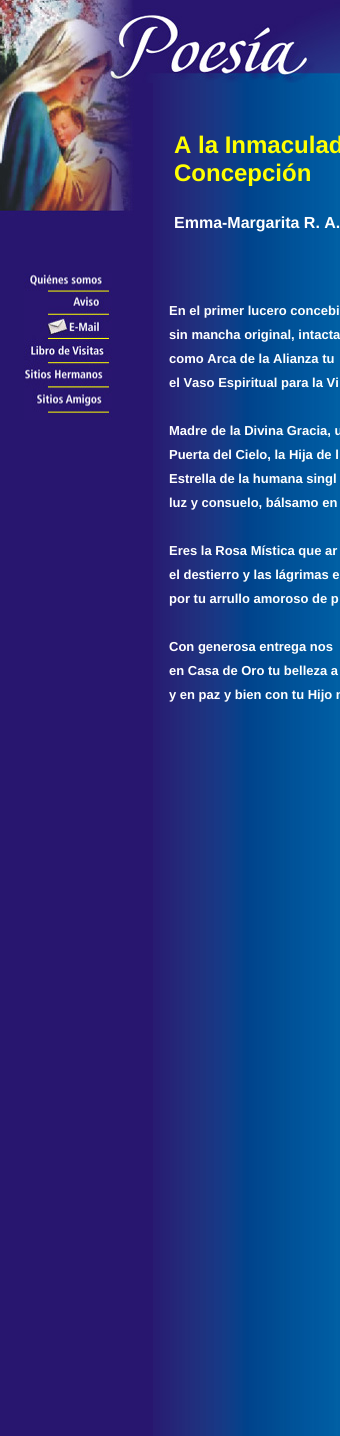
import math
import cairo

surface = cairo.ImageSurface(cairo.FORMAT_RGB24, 340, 1436)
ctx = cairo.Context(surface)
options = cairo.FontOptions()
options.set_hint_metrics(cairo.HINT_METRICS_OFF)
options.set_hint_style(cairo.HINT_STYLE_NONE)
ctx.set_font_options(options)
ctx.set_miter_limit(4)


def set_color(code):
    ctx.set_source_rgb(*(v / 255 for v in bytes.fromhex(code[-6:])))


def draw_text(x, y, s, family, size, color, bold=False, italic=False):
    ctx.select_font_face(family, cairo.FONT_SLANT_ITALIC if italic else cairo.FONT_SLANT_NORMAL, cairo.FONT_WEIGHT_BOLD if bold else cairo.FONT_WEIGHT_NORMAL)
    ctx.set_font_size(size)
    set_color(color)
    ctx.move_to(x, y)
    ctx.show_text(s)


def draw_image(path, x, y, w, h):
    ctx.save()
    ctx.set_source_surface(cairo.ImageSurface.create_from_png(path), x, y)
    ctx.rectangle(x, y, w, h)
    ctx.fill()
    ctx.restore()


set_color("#28166f")
ctx.paint()
draw_image("assets/img1.png", 0, 0, 134, 216)
draw_image("assets/img2.png", 24, 273, 88, 147)
draw_image("assets/img3.png", 153, 83, 187, 1353)
draw_image("assets/img4.png", 134, 0, 206, 83)
draw_text(174, 153, "A la Inmaculad", "Liberation Sans", 24, "#ffff00", bold=True)
draw_text(174, 181, "Concepción", "Liberation Sans", 24, "#ffff00", bold=True)
draw_text(174, 228, "Emma-Margarita R. A.", "Liberation Sans", 16, "#ffffff", bold=True)
draw_text(169, 315, "En el primer lucero concebi", "Liberation Sans", 13, "#ffffff", bold=True)
draw_text(169, 339, "sin mancha original, intacta", "Liberation Sans", 13, "#ffffff", bold=True)
draw_text(169, 363, "como Arca de la Alianza tu", "Liberation Sans", 13, "#ffffff", bold=True)
draw_text(169, 387, "el Vaso Espiritual para la Vi", "Liberation Sans", 13, "#ffffff", bold=True)
draw_text(169, 435, "Madre de la Divina Gracia, u", "Liberation Sans", 13, "#ffffff", bold=True)
draw_text(169, 459, "Puerta del Cielo, la Hija de l", "Liberation Sans", 13, "#ffffff", bold=True)
draw_text(169, 483, "Estrella de la humana singl", "Liberation Sans", 13, "#ffffff", bold=True)
draw_text(169, 507, "luz y consuelo, bálsamo en", "Liberation Sans", 13, "#ffffff", bold=True)
draw_text(169, 555, "Eres la Rosa Mística que ar", "Liberation Sans", 13, "#ffffff", bold=True)
draw_text(169, 579, "el destierro y las lágrimas e", "Liberation Sans", 13, "#ffffff", bold=True)
draw_text(169, 603, "por tu arrullo amoroso de p", "Liberation Sans", 13, "#ffffff", bold=True)
draw_text(169, 651, "Con generosa entrega nos", "Liberation Sans", 13, "#ffffff", bold=True)
draw_text(169, 675, "en Casa de Oro tu belleza a", "Liberation Sans", 13, "#ffffff", bold=True)
draw_text(169, 699, "y en paz y bien con tu Hijo n", "Liberation Sans", 13, "#ffffff", bold=True)
surface.write_to_png("output.png")
